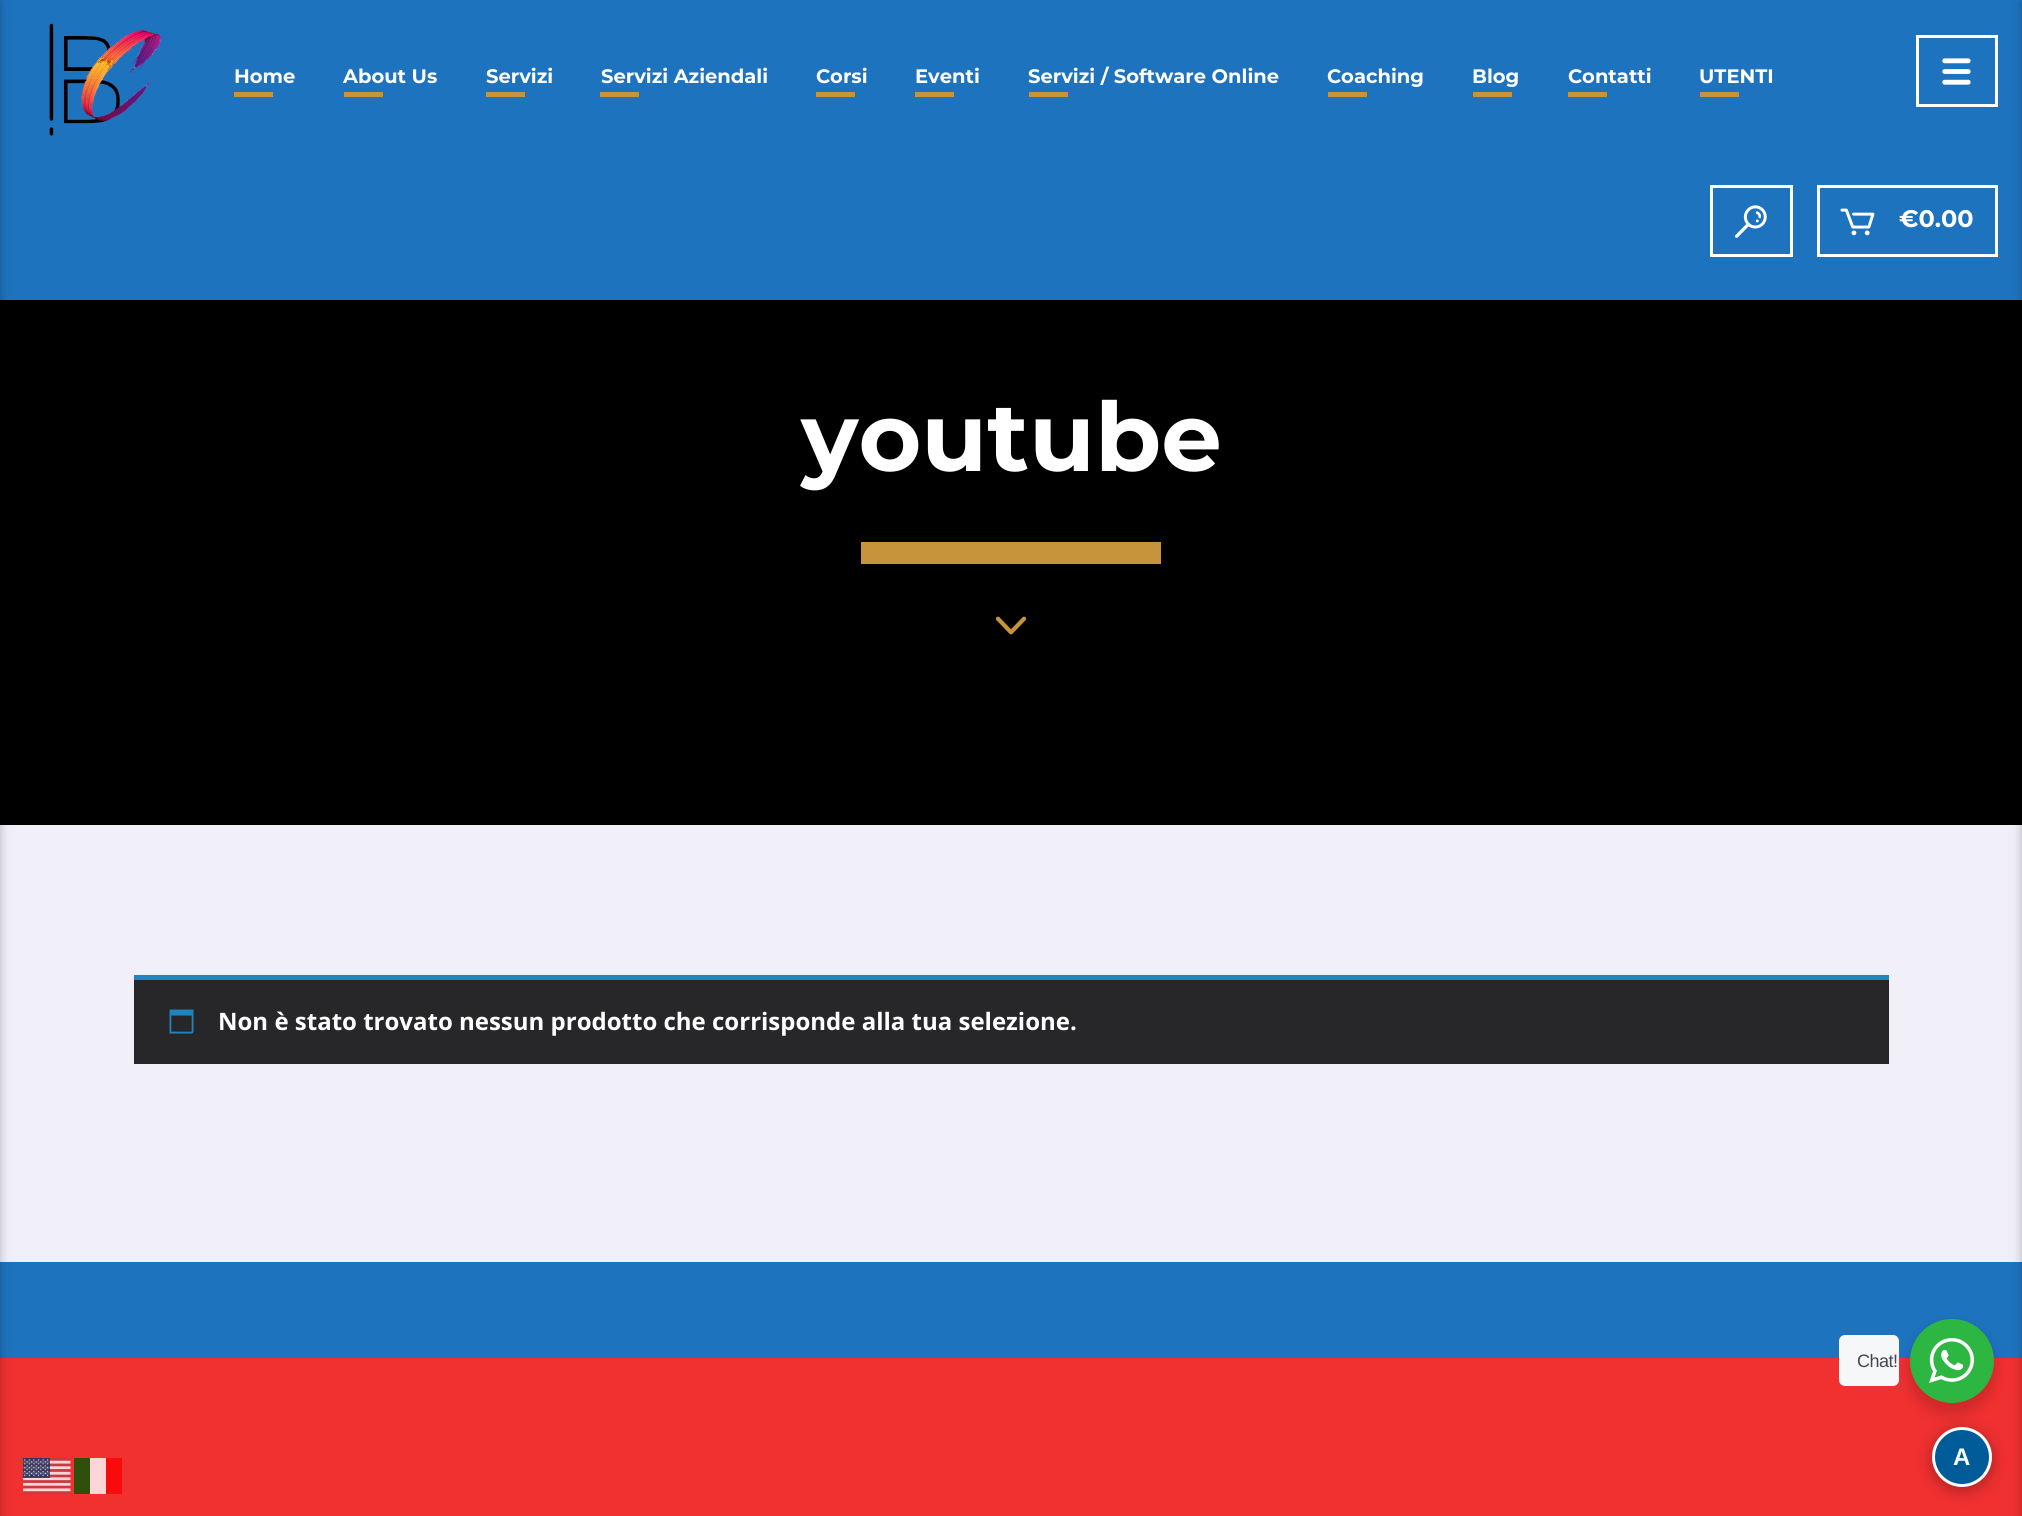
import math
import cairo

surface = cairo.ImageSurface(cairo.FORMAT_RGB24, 2022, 1516)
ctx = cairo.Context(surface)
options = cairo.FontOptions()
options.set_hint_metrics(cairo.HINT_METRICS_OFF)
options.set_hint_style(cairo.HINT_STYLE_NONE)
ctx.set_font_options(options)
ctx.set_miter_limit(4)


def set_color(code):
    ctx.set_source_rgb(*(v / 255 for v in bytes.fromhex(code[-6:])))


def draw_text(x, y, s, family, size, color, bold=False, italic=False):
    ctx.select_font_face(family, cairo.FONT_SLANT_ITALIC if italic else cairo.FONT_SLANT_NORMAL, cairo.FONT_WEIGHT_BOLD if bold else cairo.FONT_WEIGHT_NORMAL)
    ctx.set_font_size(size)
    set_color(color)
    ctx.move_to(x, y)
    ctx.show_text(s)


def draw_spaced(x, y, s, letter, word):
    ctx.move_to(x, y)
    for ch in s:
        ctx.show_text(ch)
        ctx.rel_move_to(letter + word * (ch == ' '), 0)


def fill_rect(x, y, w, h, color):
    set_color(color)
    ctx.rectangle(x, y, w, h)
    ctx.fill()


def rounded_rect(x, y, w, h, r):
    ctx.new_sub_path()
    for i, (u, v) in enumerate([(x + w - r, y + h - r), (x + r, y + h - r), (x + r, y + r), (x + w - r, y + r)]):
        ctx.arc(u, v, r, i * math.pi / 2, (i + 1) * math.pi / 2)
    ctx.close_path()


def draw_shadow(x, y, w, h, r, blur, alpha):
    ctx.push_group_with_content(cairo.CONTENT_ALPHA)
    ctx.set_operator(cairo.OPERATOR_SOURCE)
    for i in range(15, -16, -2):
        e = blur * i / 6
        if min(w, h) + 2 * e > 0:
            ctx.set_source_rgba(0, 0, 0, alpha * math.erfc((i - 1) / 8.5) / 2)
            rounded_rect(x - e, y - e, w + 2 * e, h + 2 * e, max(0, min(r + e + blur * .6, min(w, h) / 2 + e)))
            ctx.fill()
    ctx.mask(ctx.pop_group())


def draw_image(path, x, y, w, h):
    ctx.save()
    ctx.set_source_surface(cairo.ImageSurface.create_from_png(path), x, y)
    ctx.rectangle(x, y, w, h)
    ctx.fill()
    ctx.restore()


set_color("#f1f0f8")
ctx.paint()
fill_rect(0, 0, 2022, 300, "#1e73be")
fill_rect(0, 300, 2022, 525, "#000000")
fill_rect(0, 1262, 2022, 96, "#1e73be")
fill_rect(0, 1358, 2022, 158, "#f13030")
set_color("#000000")
draw_shadow(-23, 3, 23, 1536, 0, 7.5, 0.12)
draw_shadow(-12, 3, 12, 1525, 0, 4, 0.16)
draw_image("assets/img1.png", 49, 23, 112, 113)
draw_text(234, 83, "Home", "Montserrat", 19.5, "#ffffff", bold=True)
fill_rect(234, 92, 39, 5, "#c8943b")
draw_text(343, 83, "About Us", "Montserrat", 19.5, "#ffffff", bold=True)
fill_rect(344, 92, 39, 5, "#c8943b")
draw_text(486, 83, "Servizi", "Montserrat", 19.5, "#ffffff", bold=True)
fill_rect(486, 92, 39, 5, "#c8943b")
draw_text(601, 83, "Servizi Aziendali", "Montserrat", 19.5, "#ffffff", bold=True)
fill_rect(600, 92, 39, 5, "#c8943b")
draw_text(816, 83, "Corsi", "Montserrat", 19.5, "#ffffff", bold=True)
fill_rect(816, 92, 39, 5, "#c8943b")
draw_text(915, 83, "Eventi", "Montserrat", 19.5, "#ffffff", bold=True)
fill_rect(915, 92, 39, 5, "#c8943b")
draw_text(1028, 83, "Servizi / Software Online", "Montserrat", 19.5, "#ffffff", bold=True)
fill_rect(1029, 92, 39, 5, "#c8943b")
draw_text(1327, 83, "Coaching", "Montserrat", 19.5, "#ffffff", bold=True)
fill_rect(1328, 92, 39, 5, "#c8943b")
draw_text(1472, 83, "Blog", "Montserrat", 19.5, "#ffffff", bold=True)
fill_rect(1473, 92, 39, 5, "#c8943b")
draw_text(1568, 83, "Contatti", "Montserrat", 19.5, "#ffffff", bold=True)
fill_rect(1568, 92, 39, 5, "#c8943b")
draw_text(1699, 83, "UTENTI", "Montserrat", 19.5, "#ffffff", bold=True)
fill_rect(1700, 92, 39, 5, "#c8943b")
ctx.rectangle(1917.5, 36.5, 79, 69)
set_color("#ffffff")
ctx.set_line_width(3)
ctx.stroke()
draw_image("assets/img2.png", 1942, 58, 29, 27)
ctx.rectangle(1711.5, 186.5, 80, 69)
ctx.stroke()
draw_image("assets/img3.png", 1735, 205, 32, 33)
ctx.rectangle(1818.5, 186.5, 178, 69)
ctx.stroke()
draw_image("assets/img4.png", 1840, 208, 35, 28)
draw_text(1899, 227, "€0.00", "Montserrat", 24, "#ffffff", bold=True)
draw_text(801, 471, "youtube", "Montserrat", 96, "#ffffff", bold=True)
fill_rect(861, 542, 300, 22, "#c8943b")
draw_image("assets/img5.png", 995, 616, 32, 19)
fill_rect(134, 980, 1755, 84, "#27272a")
fill_rect(134, 975, 1755, 5, "#1e85be")
draw_image("assets/img6.png", 169, 1009, 25, 25)
draw_text(218, 1030, "Non è stato trovato nessun prodotto che corrisponde alla tua selezione.", "Open Sans", 24, "#ffffff", bold=True)
set_color("#000000")
draw_shadow(2022, 3, 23, 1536, 0, 7.5, 0.12)
draw_shadow(2022, 3, 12, 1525, 0, 4, 0.16)
draw_shadow(1907, 1325, 90, 90, 45, 6, 0.14)
set_color("#f5f7f9")
rounded_rect(1839, 1335, 60, 51, 6)
ctx.fill()
ctx.select_font_face("Liberation Sans")
ctx.set_font_size(18)
set_color("#43474e")
draw_spaced(1857, 1367, "Chat!", -0.5, 0)
set_color("#2db742")
ctx.new_path()
ctx.arc(1952, 1361, 42, 0, 2 * math.pi)
ctx.fill()
draw_image("assets/img7.png", 1929, 1338, 45, 45)
draw_image("assets/img8.png", 23, 1458, 48, 36)
fill_rect(74, 1458, 16, 36, "#304f0a")
fill_rect(90, 1458, 16, 36, "#fcd6d6")
fill_rect(106, 1458, 16, 36, "#fa0a0a")
set_color("#000000")
draw_shadow(1932, 1430, 60, 60, 30, 7.5, 0.3)
set_color("#005b99")
ctx.arc(1962, 1457, 28.5, 0, 2 * math.pi)
ctx.fill_preserve()
set_color("#ffffff")
ctx.stroke()
draw_text(1953, 1465, "A", "Liberation Sans", 24, "#ffffff", bold=True)
surface.write_to_png("output.png")
